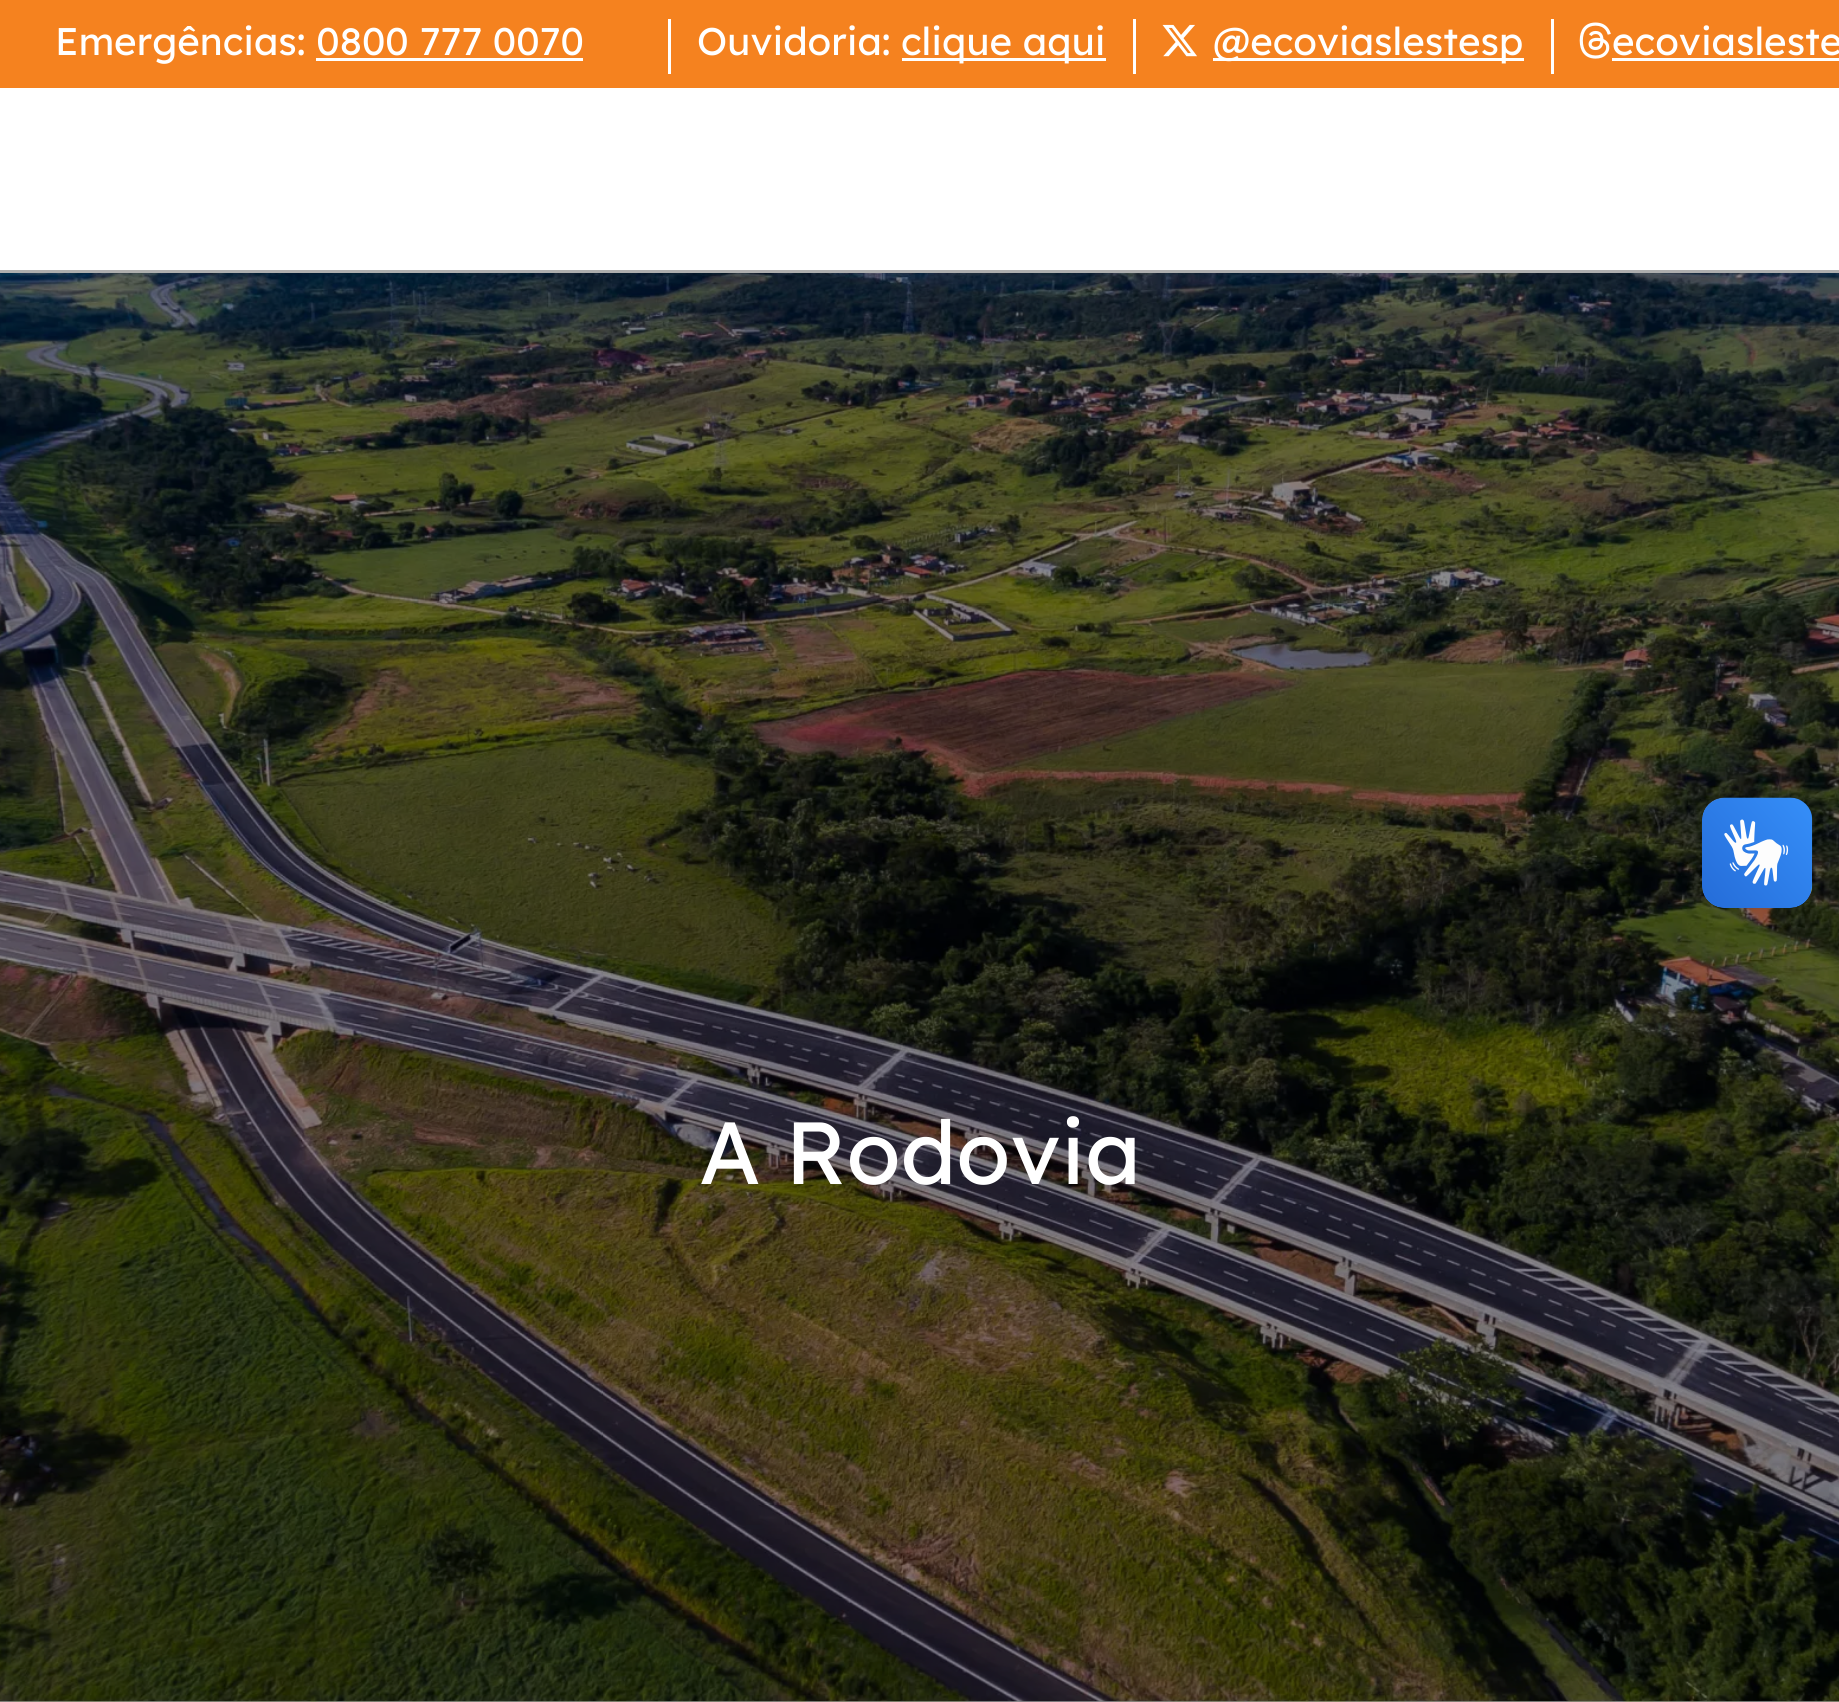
import math
import cairo

surface = cairo.ImageSurface(cairo.FORMAT_RGB24, 1839, 1702)
ctx = cairo.Context(surface)
options = cairo.FontOptions()
options.set_hint_metrics(cairo.HINT_METRICS_OFF)
options.set_hint_style(cairo.HINT_STYLE_NONE)
ctx.set_font_options(options)
ctx.set_miter_limit(4)


def set_color(code):
    ctx.set_source_rgb(*(v / 255 for v in bytes.fromhex(code[-6:])))


def draw_text(x, y, s, family, size, color, bold=False, italic=False):
    ctx.select_font_face(family, cairo.FONT_SLANT_ITALIC if italic else cairo.FONT_SLANT_NORMAL, cairo.FONT_WEIGHT_BOLD if bold else cairo.FONT_WEIGHT_NORMAL)
    ctx.set_font_size(size)
    set_color(color)
    ctx.move_to(x, y)
    ctx.show_text(s)


def fill_rect(x, y, w, h, color):
    set_color(color)
    ctx.rectangle(x, y, w, h)
    ctx.fill()


def draw_image(path, x, y, w, h):
    ctx.save()
    ctx.set_source_surface(cairo.ImageSurface.create_from_png(path), x, y)
    ctx.rectangle(x, y, w, h)
    ctx.fill()
    ctx.restore()


set_color("#ffffff")
ctx.paint()
fill_rect(0, 270, 1839, 3, "#aeaeae")
fill_rect(0, 0, 1839, 88, "#f5821f")
draw_text(55, 55, "Emergências: 0800 777 0070", "Lexend", 38.5, "#ffffff")
fill_rect(316, 58, 267, 3, "#ffffff")
fill_rect(668, 19, 3, 55, "#ffffff")
draw_text(697, 55, "Ouvidoria:", "Lexend", 38.5, "#ffffff")
fill_rect(902, 58, 204, 3, "#ffffff")
draw_text(901, 55, "clique aqui", "Lexend", 38.5, "#ffffff")
fill_rect(1133, 19, 3, 55, "#ffffff")
draw_image("assets/img1.png", 1162, 24, 35, 33)
fill_rect(1213, 58, 311, 3, "#ffffff")
draw_text(1213, 55, "@ecoviaslestesp", "Lexend", 38.5, "#ffffff")
fill_rect(1551, 19, 3, 55, "#ffffff")
draw_image("assets/img2.png", 1579, 22, 32, 37)
draw_text(1612, 55, "ecoviasleste", "Lexend", 38.5, "#ffffff")
fill_rect(1612, 58, 227, 3, "#ffffff")
draw_image("assets/img3.png", 0, 273, 1839, 1429)
draw_text(699, 1184, "A Rodovia", "Lexend", 88, "#ffffff")
draw_image("assets/img4.png", 1702, 797, 111, 111)
draw_image("assets/img5.png", 1702, 798, 110, 110)
surface.write_to_png("output.png")
